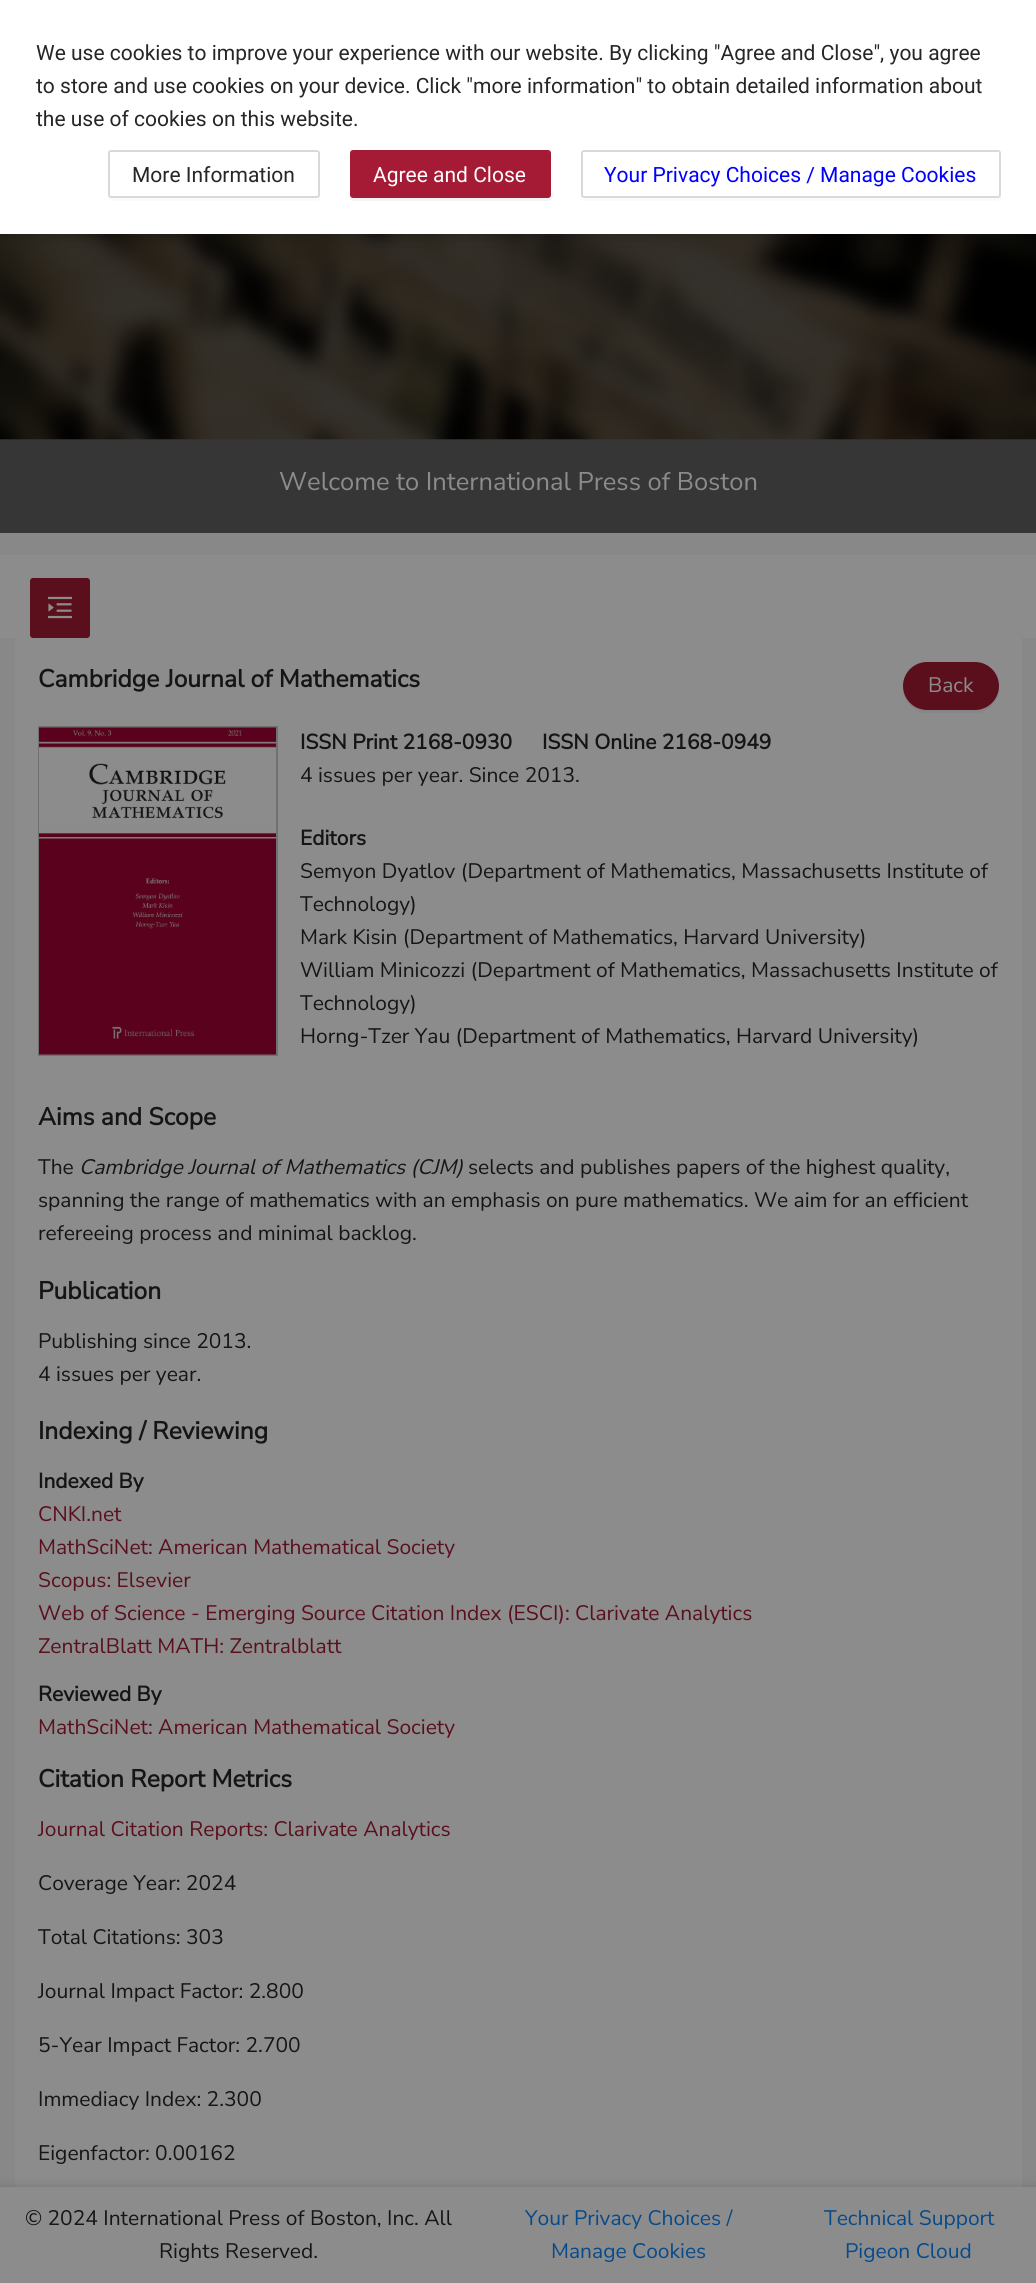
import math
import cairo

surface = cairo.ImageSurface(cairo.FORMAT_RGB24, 1036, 2283)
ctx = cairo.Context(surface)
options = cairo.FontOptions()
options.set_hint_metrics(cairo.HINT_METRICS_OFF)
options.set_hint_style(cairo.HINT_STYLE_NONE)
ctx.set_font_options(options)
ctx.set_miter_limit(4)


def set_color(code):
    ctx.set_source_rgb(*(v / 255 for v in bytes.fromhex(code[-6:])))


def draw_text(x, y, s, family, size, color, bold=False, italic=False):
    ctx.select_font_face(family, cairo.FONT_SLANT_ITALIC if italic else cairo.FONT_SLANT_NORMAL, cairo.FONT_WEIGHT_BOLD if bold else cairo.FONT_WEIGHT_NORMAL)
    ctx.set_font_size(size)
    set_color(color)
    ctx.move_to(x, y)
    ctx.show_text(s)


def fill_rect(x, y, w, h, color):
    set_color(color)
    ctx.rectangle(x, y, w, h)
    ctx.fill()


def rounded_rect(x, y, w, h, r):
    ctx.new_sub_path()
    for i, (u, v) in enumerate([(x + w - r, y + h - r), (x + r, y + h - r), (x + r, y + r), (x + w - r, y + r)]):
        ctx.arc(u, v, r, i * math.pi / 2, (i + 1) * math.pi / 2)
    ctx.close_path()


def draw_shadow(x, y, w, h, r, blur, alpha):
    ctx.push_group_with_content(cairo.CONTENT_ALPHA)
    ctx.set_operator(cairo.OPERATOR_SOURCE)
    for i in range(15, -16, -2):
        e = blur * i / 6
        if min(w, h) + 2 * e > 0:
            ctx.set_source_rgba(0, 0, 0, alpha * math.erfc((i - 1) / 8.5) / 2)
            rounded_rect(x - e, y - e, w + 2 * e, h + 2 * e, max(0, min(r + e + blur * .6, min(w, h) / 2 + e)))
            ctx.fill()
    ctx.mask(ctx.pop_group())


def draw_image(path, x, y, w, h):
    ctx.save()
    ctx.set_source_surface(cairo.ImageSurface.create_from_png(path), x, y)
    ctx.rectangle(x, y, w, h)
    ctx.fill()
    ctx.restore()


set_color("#888888")
ctx.paint()
fill_rect(0, 439, 1036, 94, "#363636")
draw_image("assets/img1.png", 0, 234, 1036, 206)
set_color("#000000")
draw_shadow(0, 8, 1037, 217, 0, 11, 0.6)
fill_rect(0, 0, 1036, 234, "#ffffff")
draw_text(36, 60, "We use cookies to improve your experience with our website. By clicking \"Agree and Close\", you agree", "Roboto", 21, "#262626")
draw_text(36, 93, "to store and use cookies on your device. Click \"more information\" to obtain detailed information about", "Roboto", 21, "#262626")
draw_text(36, 126, "the use of cookies on this website.", "Roboto", 21, "#262626")
set_color("#fbfbfb")
ctx.new_path()
ctx.move_to(108, 195)
ctx.line_to(108, 198)
ctx.curve_to(108, 200, 109, 201, 111, 201)
ctx.line_to(317, 201)
ctx.curve_to(319, 201, 320, 200, 320, 198)
ctx.line_to(320, 156)
ctx.line_to(320, 154)
ctx.line_to(320, 195)
ctx.curve_to(320, 197, 318, 198, 316, 198)
ctx.line_to(111, 198)
ctx.curve_to(109, 198, 108, 197, 108, 195)
ctx.close_path()
ctx.fill()
rounded_rect(109, 151, 210, 46, 2)
set_color("#d9d9d9")
ctx.stroke()
draw_text(132, 182, "More Information", "Roboto", 21, "#262626")
set_color("#f4f4f4")
ctx.new_path()
ctx.move_to(350, 197)
ctx.line_to(350, 198)
ctx.curve_to(350, 200, 351, 201, 353, 201)
ctx.line_to(548, 201)
ctx.curve_to(550, 201, 551, 200, 551, 198)
ctx.line_to(551, 156)
ctx.line_to(550, 154)
ctx.line_to(550, 195)
ctx.curve_to(550, 197, 549, 198, 548, 198)
ctx.line_to(352, 198)
ctx.curve_to(351, 198, 351, 197, 350, 197)
ctx.close_path()
ctx.fill()
set_color("#a51b35")
rounded_rect(351, 151, 199, 46, 2)
ctx.fill_preserve()
ctx.stroke()
draw_text(373, 182, "Agree and Close", "Roboto", 21, "#ffffff")
set_color("#fbfbfb")
ctx.new_path()
ctx.move_to(581, 197)
ctx.line_to(581, 198)
ctx.curve_to(581, 200, 582, 201, 584, 201)
ctx.line_to(998, 201)
ctx.curve_to(1000, 201, 1001, 200, 1001, 198)
ctx.line_to(1001, 156)
ctx.line_to(1000, 154)
ctx.line_to(1000, 195)
ctx.curve_to(1000, 197, 999, 198, 998, 198)
ctx.line_to(584, 198)
ctx.curve_to(582, 198, 582, 197, 581, 197)
ctx.close_path()
ctx.fill()
set_color("#ffffff")
rounded_rect(582, 151, 418, 46, 2)
ctx.fill_preserve()
set_color("#d9d9d9")
ctx.stroke()
draw_text(604, 182, "Your Privacy Choices / Manage Cookies", "Roboto", 21, "#0000ff")
draw_text(279, 490, "Welcome to International Press of Boston", "Nunito Sans", 25.5, "#8c8c8c")
fill_rect(0, 555, 1036, 83, "#8c8c8c")
ctx.set_source_rgba(0, 0, 0, 0.04)
ctx.new_path()
ctx.move_to(30, 634)
ctx.curve_to(30, 643, 32, 641, 42, 641)
ctx.line_to(78, 641)
ctx.curve_to(88, 641, 90, 643, 90, 634)
ctx.curve_to(90, 636, 89, 638, 87, 638)
ctx.line_to(33, 638)
ctx.curve_to(31, 638, 30, 636, 30, 634)
ctx.close_path()
ctx.fill()
set_color("#5b0f1d")
rounded_rect(31, 579, 58, 58, 2)
ctx.fill_preserve()
ctx.stroke()
draw_image("assets/img2.png", 47, 596, 26, 23)
fill_rect(15, 638, 1007, 1549, "#8c8c8c")
draw_text(38, 687, "Cambridge Journal of Mathematics", "Nunito Sans", 24.6, "#151515", bold=True)
set_color("#868686")
ctx.new_path()
ctx.move_to(903, 687)
ctx.line_to(903, 689)
ctx.curve_to(903, 702, 914, 713, 927, 713)
ctx.line_to(975, 713)
ctx.curve_to(988, 713, 999, 702, 999, 689)
ctx.line_to(999, 687)
ctx.curve_to(998, 700, 988, 710, 975, 710)
ctx.line_to(927, 710)
ctx.curve_to(914, 710, 904, 700, 903, 687)
ctx.close_path()
ctx.fill()
set_color("#5b0f1d")
rounded_rect(904, 663, 94, 46, 23)
ctx.fill_preserve()
ctx.stroke()
draw_text(928, 692, "Back", "Nunito Sans", 21, "#8c8c8c")
ctx.rectangle(39, 727, 238, 328)
set_color("#707070")
ctx.stroke()
draw_image("assets/img3.png", 39, 727, 237, 328)
draw_text(300, 749, "ISSN Print 2168-0930", "Nunito Sans", 21, "#151515", bold=True)
draw_text(542, 749, "ISSN Online 2168-0949", "Nunito Sans", 21, "#151515", bold=True)
draw_text(300, 782, "4 issues per year. Since 2013.", "Nunito Sans", 21, "#151515")
draw_text(300, 845, "Editors", "Nunito Sans", 21, "#151515", bold=True)
draw_text(300, 878, "Semyon Dyatlov (Department of Mathematics, Massachusetts Institute of", "Nunito Sans", 21, "#151515")
draw_text(300, 911, "Technology)", "Nunito Sans", 21, "#151515")
draw_text(300, 944, "Mark Kisin (Department of Mathematics, Harvard University)", "Nunito Sans", 21, "#151515")
draw_text(300, 977, "William Minicozzi (Department of Mathematics, Massachusetts Institute of", "Nunito Sans", 21, "#151515")
draw_text(300, 1010, "Technology)", "Nunito Sans", 21, "#151515")
draw_text(300, 1043, "Horng-Tzer Yau (Department of Mathematics, Harvard University)", "Nunito Sans", 21, "#151515")
draw_text(38, 1125, "Aims and Scope", "Nunito Sans", 24.6, "#151515", bold=True)
draw_text(38, 1174, "The", "Nunito Sans", 21, "#151515")
draw_text(79, 1174, "Cambridge Journal of Mathematics (CJM)", "Nunito Sans", 21, "#151515", italic=True)
draw_text(468, 1174, "selects and publishes papers of the highest quality,", "Nunito Sans", 21, "#151515")
draw_text(38, 1207, "spanning the range of mathematics with an emphasis on pure mathematics. We aim for an efficient", "Nunito Sans", 21, "#151515")
draw_text(38, 1240, "refereeing process and minimal backlog.", "Nunito Sans", 21, "#151515")
draw_text(38, 1299, "Publication", "Nunito Sans", 24.6, "#151515", bold=True)
draw_text(38, 1348, "Publishing since 2013.", "Nunito Sans", 21, "#151515")
draw_text(38, 1381, "4 issues per year.", "Nunito Sans", 21, "#151515")
draw_text(38, 1439, "Indexing / Reviewing", "Nunito Sans", 24.6, "#151515", bold=True)
draw_text(38, 1488, "Indexed By", "Nunito Sans", 21, "#151515", bold=True)
draw_text(38, 1521, "CNKI.net", "Nunito Sans", 21, "#5b0f1d")
draw_text(38, 1554, "MathSciNet: American Mathematical Society", "Nunito Sans", 21, "#5b0f1d")
draw_text(38, 1587, "Scopus: Elsevier", "Nunito Sans", 21, "#5b0f1d")
draw_text(38, 1620, "Web of Science - Emerging Source Citation Index (ESCI): Clarivate Analytics", "Nunito Sans", 21, "#5b0f1d")
draw_text(38, 1653, "ZentralBlatt MATH: Zentralblatt", "Nunito Sans", 21, "#5b0f1d")
draw_text(38, 1701, "Reviewed By", "Nunito Sans", 21, "#151515", bold=True)
draw_text(38, 1734, "MathSciNet: American Mathematical Society", "Nunito Sans", 21, "#5b0f1d")
draw_text(38, 1787, "Citation Report Metrics", "Nunito Sans", 24.6, "#151515", bold=True)
draw_text(38, 1836, "Journal Citation Reports: Clarivate Analytics", "Nunito Sans", 21, "#5b0f1d")
draw_text(38, 1890, "Coverage Year: 2024", "Nunito Sans", 21, "#151515")
draw_text(38, 1944, "Total Citations: 303", "Nunito Sans", 21, "#151515")
draw_text(38, 1998, "Journal Impact Factor: 2.800", "Nunito Sans", 21, "#151515")
draw_text(38, 2052, "5-Year Impact Factor: 2.700", "Nunito Sans", 21, "#151515")
draw_text(38, 2106, "Immediacy Index: 2.300", "Nunito Sans", 21, "#151515")
draw_text(38, 2160, "Eigenfactor: 0.00162", "Nunito Sans", 21, "#151515")
set_color("#000000")
draw_shadow(0, 2184, 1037, 96, 0, 4, 0.1)
fill_rect(0, 2187, 1036, 96, "#8c8c8c")
draw_text(25, 2225, "© 2024 International Press of Boston, Inc. All", "Nunito Sans", 21, "#151515")
draw_text(159, 2258, "Rights Reserved.", "Nunito Sans", 21, "#151515")
draw_text(525, 2225, "Your Privacy Choices /", "Nunito Sans", 21, "#064a8b")
draw_text(551, 2258, "Manage Cookies", "Nunito Sans", 21, "#064a8b")
draw_text(824, 2225, "Technical Support", "Nunito Sans", 21, "#064a8b")
draw_text(845, 2258, "Pigeon Cloud", "Nunito Sans", 21, "#064a8b")
surface.write_to_png("output.png")
